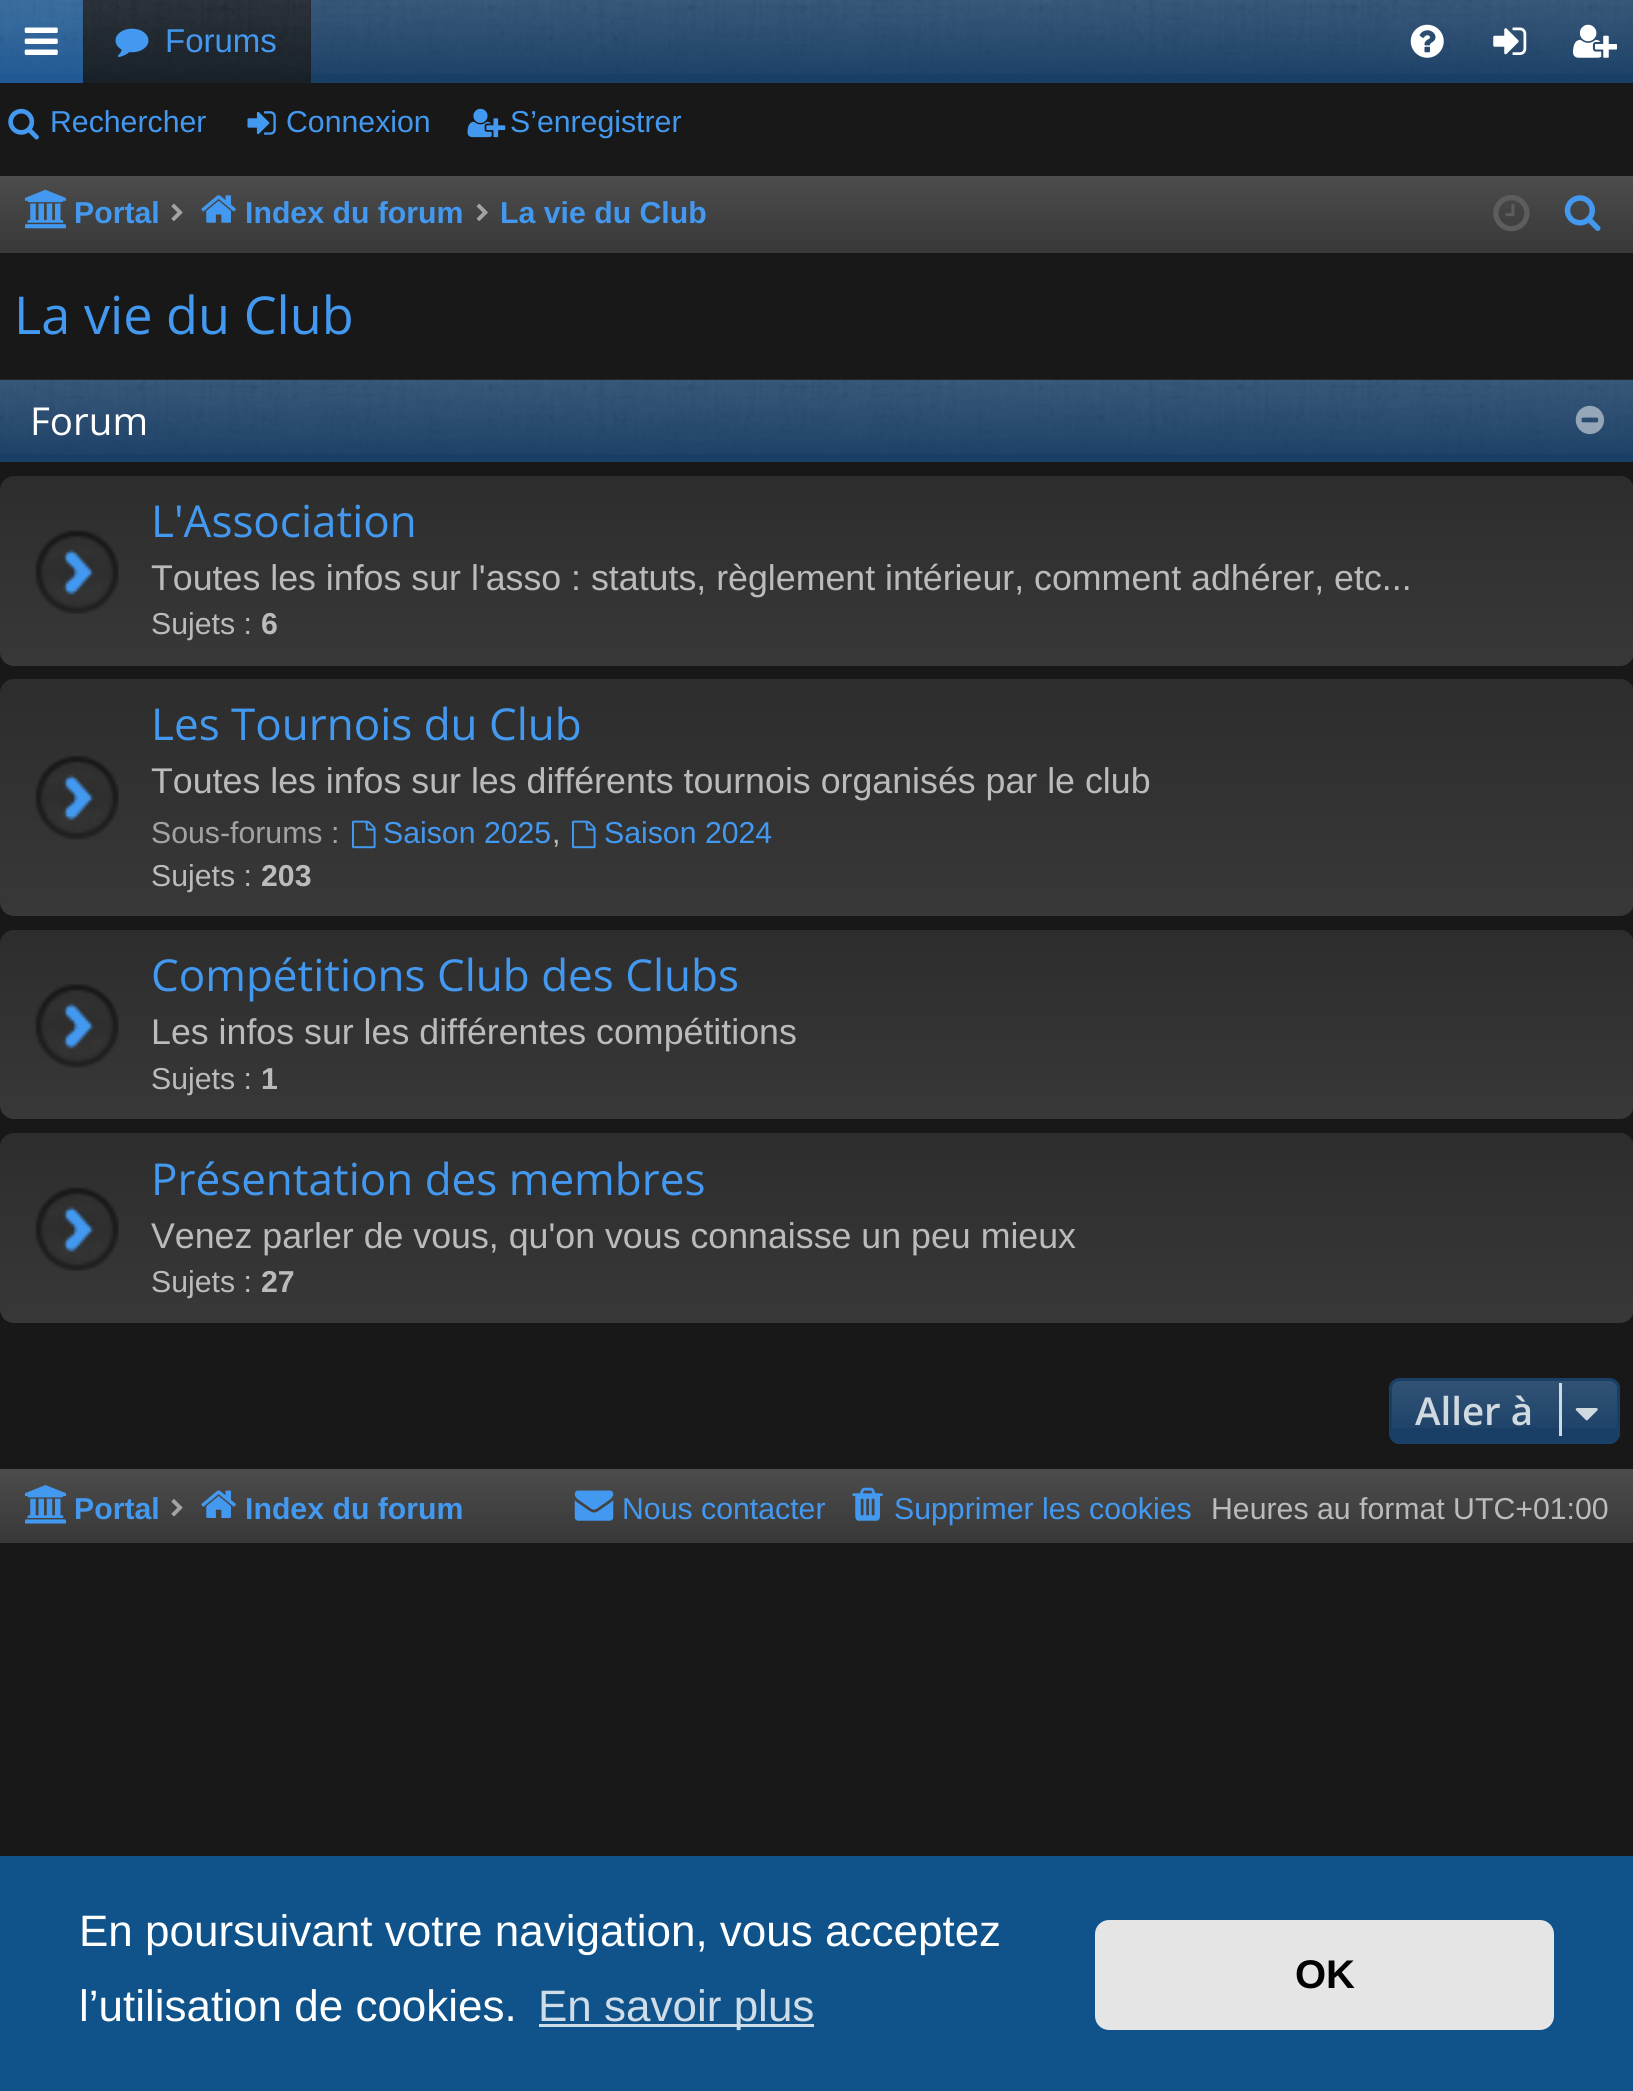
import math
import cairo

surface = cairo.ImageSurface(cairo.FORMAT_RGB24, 1633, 2091)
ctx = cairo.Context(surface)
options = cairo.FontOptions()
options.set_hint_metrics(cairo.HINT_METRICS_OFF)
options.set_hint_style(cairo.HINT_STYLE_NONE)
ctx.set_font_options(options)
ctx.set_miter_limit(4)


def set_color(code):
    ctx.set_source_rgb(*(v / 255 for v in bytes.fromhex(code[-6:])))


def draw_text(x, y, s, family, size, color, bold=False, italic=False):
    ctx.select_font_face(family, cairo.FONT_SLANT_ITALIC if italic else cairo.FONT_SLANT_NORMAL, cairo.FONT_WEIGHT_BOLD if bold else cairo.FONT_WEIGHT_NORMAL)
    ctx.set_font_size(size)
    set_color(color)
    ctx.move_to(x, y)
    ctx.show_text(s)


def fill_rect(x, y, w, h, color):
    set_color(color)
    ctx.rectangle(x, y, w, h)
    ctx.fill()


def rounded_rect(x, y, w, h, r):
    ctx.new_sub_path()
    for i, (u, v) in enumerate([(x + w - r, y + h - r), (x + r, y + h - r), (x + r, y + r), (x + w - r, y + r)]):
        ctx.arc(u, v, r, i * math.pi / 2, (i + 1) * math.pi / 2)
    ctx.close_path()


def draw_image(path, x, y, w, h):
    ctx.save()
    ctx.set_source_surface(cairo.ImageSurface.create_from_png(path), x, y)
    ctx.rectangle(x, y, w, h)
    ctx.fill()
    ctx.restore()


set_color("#181818")
ctx.paint()
fill_rect(311, 0, 1322, 83, "#1a3f66")
draw_image("assets/img1.png", 311, 0, 1322, 74)
fill_rect(0, 0, 83, 83, "#205993")
draw_image("assets/img2.png", 0, 0, 83, 74)
draw_image("assets/img3.png", 24, 27, 34, 28)
fill_rect(83, 0, 228, 83, "#182028")
draw_image("assets/img4.png", 82, 0, 229, 73)
draw_image("assets/img5.png", 115, 28, 34, 29)
draw_text(165, 52, "Forums", "Liberation Sans", 33, "#4398ef")
draw_image("assets/img6.png", 1410, 24, 34, 34)
draw_image("assets/img7.png", 1493, 27, 34, 28)
draw_image("assets/img8.png", 1573, 24, 44, 34)
draw_image("assets/img9.png", 8, 108, 31, 32)
draw_text(50, 132, "Rechercher", "Liberation Sans", 30.25, "#4398ef")
draw_image("assets/img10.png", 247, 111, 29, 24)
draw_text(286, 132, "Connexion", "Liberation Sans", 30.25, "#4398ef")
draw_image("assets/img11.png", 467, 108, 39, 30)
draw_text(510, 132, "S’enregistrer", "Liberation Sans", 30.25, "#4398ef")
gradient = cairo.LinearGradient(817, 176, 817, 253)
gradient.add_color_stop_rgba(0, 0.298, 0.298, 0.298, 1)
gradient.add_color_stop_rgba(1, 0.22, 0.22, 0.22, 1)
ctx.set_source(gradient)
ctx.rectangle(0, 176, 1633, 77)
ctx.fill()
draw_image("assets/img12.png", 25, 189, 41, 40)
draw_text(74, 223, "Portal", "Liberation Sans", 30.25, "#4398ef", bold=True)
draw_image("assets/img13.png", 171, 203, 12, 18)
draw_image("assets/img14.png", 201, 195, 35, 28)
draw_text(245, 223, "Index du forum", "Liberation Sans", 30.25, "#4398ef", bold=True)
draw_image("assets/img15.png", 476, 203, 12, 18)
draw_text(500, 223, "La vie du Club", "Liberation Sans", 30.25, "#4398ef", bold=True)
draw_image("assets/img16.png", 1493, 195, 37, 37)
draw_image("assets/img17.png", 1564, 195, 37, 36)
draw_text(14, 334, "La vie du Club", "Open Sans", 52.25, "#4398ef")
fill_rect(0, 380, 1633, 82, "#1a3f66")
draw_image("assets/img18.png", 0, 379, 1633, 75)
draw_text(30, 435, "Forum", "Open Sans", 38.5, "#ffffff")
draw_image("assets/img19.png", 1575, 405, 29, 30)
set_color("#383838")
rounded_rect(0, 476, 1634, 190, 14)
ctx.fill()
gradient = cairo.LinearGradient(817, 476, 817, 666)
gradient.add_color_stop_rgba(0, 0, 0, 0, 0.2)
gradient.add_color_stop_rgba(1, 0, 0, 0, 0)
ctx.set_source(gradient)
rounded_rect(0, 476, 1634, 190, 14)
ctx.fill()
draw_image("assets/img20.png", 35, 530, 84, 84)
draw_text(151, 537, "L'Association", "Open Sans", 44, "#4398ef")
draw_text(151, 590, "Toutes les infos sur l'asso : statuts, règlement intérieur, comment adhérer, etc...", "Liberation Sans", 35.75, "#bbbbbb")
draw_text(151, 634, "Sujets :", "Liberation Sans", 30.25, "#bbbbbb")
draw_text(261, 634, "6", "Liberation Sans", 30.25, "#bbbbbb", bold=True)
set_color("#383838")
rounded_rect(0, 679, 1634, 237, 14)
ctx.fill()
gradient = cairo.LinearGradient(817, 679, 817, 916)
gradient.add_color_stop_rgba(0, 0, 0, 0, 0.2)
gradient.add_color_stop_rgba(1, 0, 0, 0, 0)
ctx.set_source(gradient)
rounded_rect(0, 679, 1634, 237, 14)
ctx.fill()
draw_image("assets/img21.png", 35, 755, 84, 85)
draw_text(151, 740, "Les Tournois du Club", "Open Sans", 44, "#4398ef")
draw_text(151, 793, "Toutes les infos sur les différents tournois organisés par le club", "Liberation Sans", 35.75, "#bbbbbb")
draw_text(151, 843, "Sous-forums :", "Liberation Sans", 30.25, "#a3a3a3")
draw_image("assets/img22.png", 352, 820, 24, 29)
draw_text(383, 843, "Saison 2025", "Liberation Sans", 30.25, "#4398ef")
draw_text(552, 843, ",", "Liberation Sans", 30.25, "#bbbbbb")
draw_image("assets/img22.png", 572, 820, 24, 29)
draw_text(604, 843, "Saison 2024", "Liberation Sans", 30.25, "#4398ef")
draw_text(151, 886, "Sujets :", "Liberation Sans", 30.25, "#bbbbbb")
draw_text(261, 886, "203", "Liberation Sans", 30.25, "#bbbbbb", bold=True)
set_color("#383838")
rounded_rect(0, 930, 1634, 189, 14)
ctx.fill()
gradient = cairo.LinearGradient(817, 929, 817, 1119)
gradient.add_color_stop_rgba(0, 0, 0, 0, 0.2)
gradient.add_color_stop_rgba(1, 0, 0, 0, 0)
ctx.set_source(gradient)
rounded_rect(0, 930, 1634, 189, 14)
ctx.fill()
draw_image("assets/img23.png", 35, 984, 84, 84)
draw_text(151, 991, "Compétitions Club des Clubs", "Open Sans", 44, "#4398ef")
draw_text(151, 1044, "Les infos sur les différentes compétitions", "Liberation Sans", 35.75, "#bbbbbb")
draw_text(151, 1089, "Sujets :", "Liberation Sans", 30.25, "#bbbbbb")
draw_text(261, 1089, "1", "Liberation Sans", 30.25, "#bbbbbb", bold=True)
set_color("#383838")
rounded_rect(0, 1133, 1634, 190, 14)
ctx.fill()
gradient = cairo.LinearGradient(817, 1133, 817, 1323)
gradient.add_color_stop_rgba(0, 0, 0, 0, 0.2)
gradient.add_color_stop_rgba(1, 0, 0, 0, 0)
ctx.set_source(gradient)
rounded_rect(0, 1133, 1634, 190, 14)
ctx.fill()
draw_image("assets/img24.png", 35, 1187, 84, 84)
draw_text(151, 1195, "Présentation des membres", "Open Sans", 44, "#4398ef")
draw_text(151, 1248, "Venez parler de vous, qu'on vous connaisse un peu mieux", "Liberation Sans", 35.75, "#bbbbbb")
draw_text(151, 1292, "Sujets :", "Liberation Sans", 30.25, "#bbbbbb")
draw_text(261, 1292, "27", "Liberation Sans", 30.25, "#bbbbbb", bold=True)
set_color("#1a3f66")
rounded_rect(1389, 1378, 231, 66, 11)
ctx.fill()
ctx.save()
rounded_rect(1389, 1378, 231, 66, 11)
ctx.clip()
gradient = cairo.LinearGradient(1504, 1381, 1504, 1441)
gradient.add_color_stop_rgba(0, 1, 1, 1, 0.1)
gradient.add_color_stop_rgba(1, 1, 1, 1, 0)
ctx.set_source(gradient)
ctx.rectangle(1389, 1381, 231, 47)
ctx.fill()
ctx.restore()
rounded_rect(1390.5, 1379.5, 228, 63, 9.5)
ctx.set_line_width(3)
ctx.stroke()
draw_text(1415, 1425, "Aller à", "Open Sans SemiBold", 38.5, "#d1d9e0")
fill_rect(1559, 1383, 3, 53, "#d1d9e0")
draw_image("assets/img25.png", 1575, 1408, 23, 13)
gradient = cairo.LinearGradient(817, 1469, 817, 1543)
gradient.add_color_stop_rgba(0, 0.298, 0.298, 0.298, 1)
gradient.add_color_stop_rgba(1, 0.22, 0.22, 0.22, 1)
ctx.set_source(gradient)
ctx.rectangle(0, 1469, 1633, 74)
ctx.fill()
draw_image("assets/img26.png", 25, 1485, 41, 39)
draw_text(74, 1519, "Portal", "Liberation Sans", 30.25, "#4398ef", bold=True)
draw_image("assets/img27.png", 171, 1499, 12, 18)
draw_image("assets/img28.png", 201, 1490, 35, 28)
draw_text(245, 1519, "Index du forum", "Liberation Sans", 30.25, "#4398ef", bold=True)
draw_image("assets/img29.png", 574, 1490, 40, 31)
draw_text(622, 1519, "Nous contacter", "Liberation Sans", 30.25, "#4398ef")
draw_image("assets/img30.png", 852, 1487, 31, 34)
draw_text(894, 1519, "Supprimer les cookies", "Liberation Sans", 30.25, "#4398ef")
draw_text(1211, 1519, "Heures au format UTC+01:00", "Liberation Sans", 30.25, "#bbbbbb")
fill_rect(0, 1856, 1633, 235, "#0f538a")
draw_text(79, 1946, "En poursuivant votre navigation, vous acceptez", "Liberation Sans", 44, "#ffffff")
draw_text(79, 2021, "l’utilisation de cookies.", "Liberation Sans", 44, "#ffffff")
fill_rect(539, 2024, 275, 3, "#cfdde8")
draw_text(538, 2021, "En savoir plus", "Liberation Sans", 44, "#cfdde8")
set_color("#e5e5e5")
rounded_rect(1095, 1920, 459, 110, 14)
ctx.fill()
draw_text(1295, 1988, "OK", "Liberation Sans", 40, "#000000", bold=True)
surface.write_to_png("output.png")
